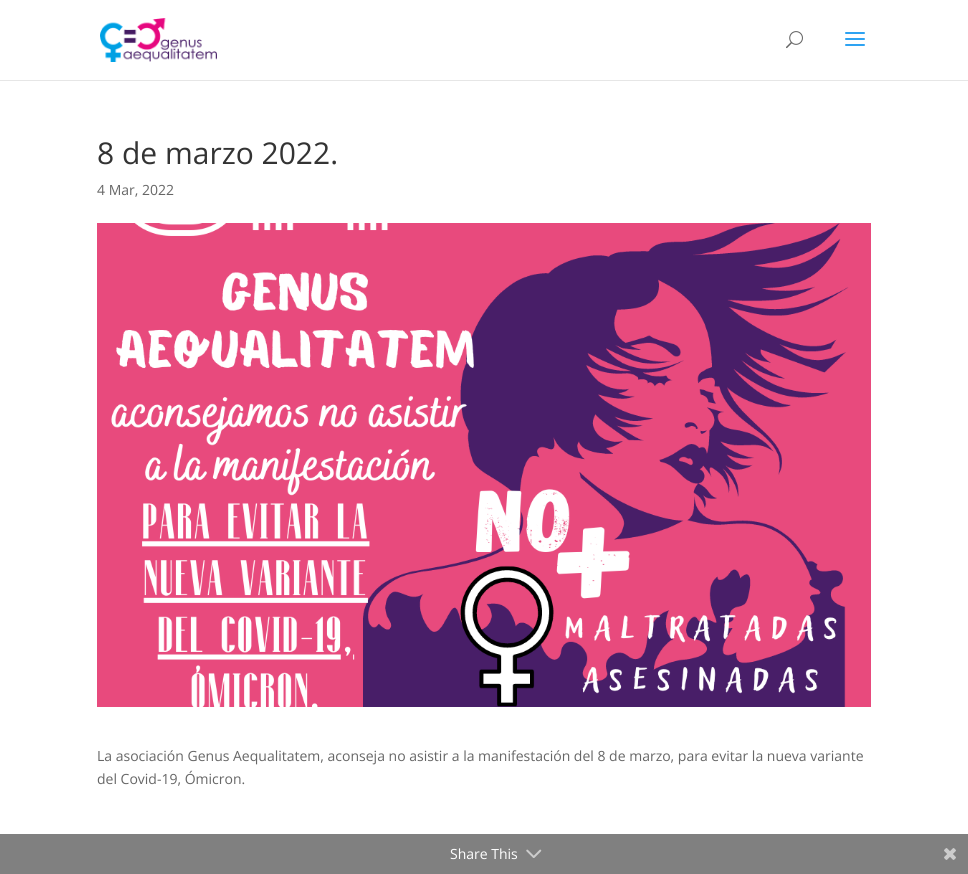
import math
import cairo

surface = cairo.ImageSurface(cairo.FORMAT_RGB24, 968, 874)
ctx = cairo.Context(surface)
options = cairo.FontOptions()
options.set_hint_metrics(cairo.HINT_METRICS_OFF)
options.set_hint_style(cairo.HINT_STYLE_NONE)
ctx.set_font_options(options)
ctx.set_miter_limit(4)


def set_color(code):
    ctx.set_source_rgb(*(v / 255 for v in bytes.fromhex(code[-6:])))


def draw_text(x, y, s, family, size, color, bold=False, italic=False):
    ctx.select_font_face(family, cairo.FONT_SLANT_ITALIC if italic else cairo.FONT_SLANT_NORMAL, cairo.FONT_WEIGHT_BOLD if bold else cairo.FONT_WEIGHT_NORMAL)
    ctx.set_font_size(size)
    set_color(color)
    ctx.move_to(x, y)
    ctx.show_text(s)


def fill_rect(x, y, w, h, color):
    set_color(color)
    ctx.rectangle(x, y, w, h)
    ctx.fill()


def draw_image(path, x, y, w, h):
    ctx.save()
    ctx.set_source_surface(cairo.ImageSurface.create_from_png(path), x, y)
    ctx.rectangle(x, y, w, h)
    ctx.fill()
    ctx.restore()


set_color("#ffffff")
ctx.paint()
fill_rect(0, 80, 968, 1, "#e6e6e6")
draw_image("assets/img1.png", 100, 18, 117, 44)
draw_image("assets/img2.png", 786, 31, 17, 18)
draw_image("assets/img3.png", 845, 32, 20, 14)
draw_text(97, 164, "8 de marzo 2022.", "Open Sans", 30, "#333333")
draw_text(97, 195, "4 Mar, 2022", "Open Sans", 14, "#666666")
draw_image("assets/img4.png", 97, 223, 774, 484)
draw_text(97, 761, "La asociación Genus Aequalitatem, aconseja no asistir a la manifestación del 8 de marzo, para evitar la nueva variante", "Open Sans", 14, "#666666")
draw_text(97, 784, "del Covid-19, Ómicron.", "Open Sans", 14, "#666666")
fill_rect(0, 834, 968, 40, "#808080")
draw_text(450, 859, "Share This", "Open Sans", 14, "#ffffff")
draw_image("assets/img5.png", 526, 849, 16, 9)
draw_image("assets/img6.png", 944, 848, 12, 12)
surface.write_to_png("output.png")
